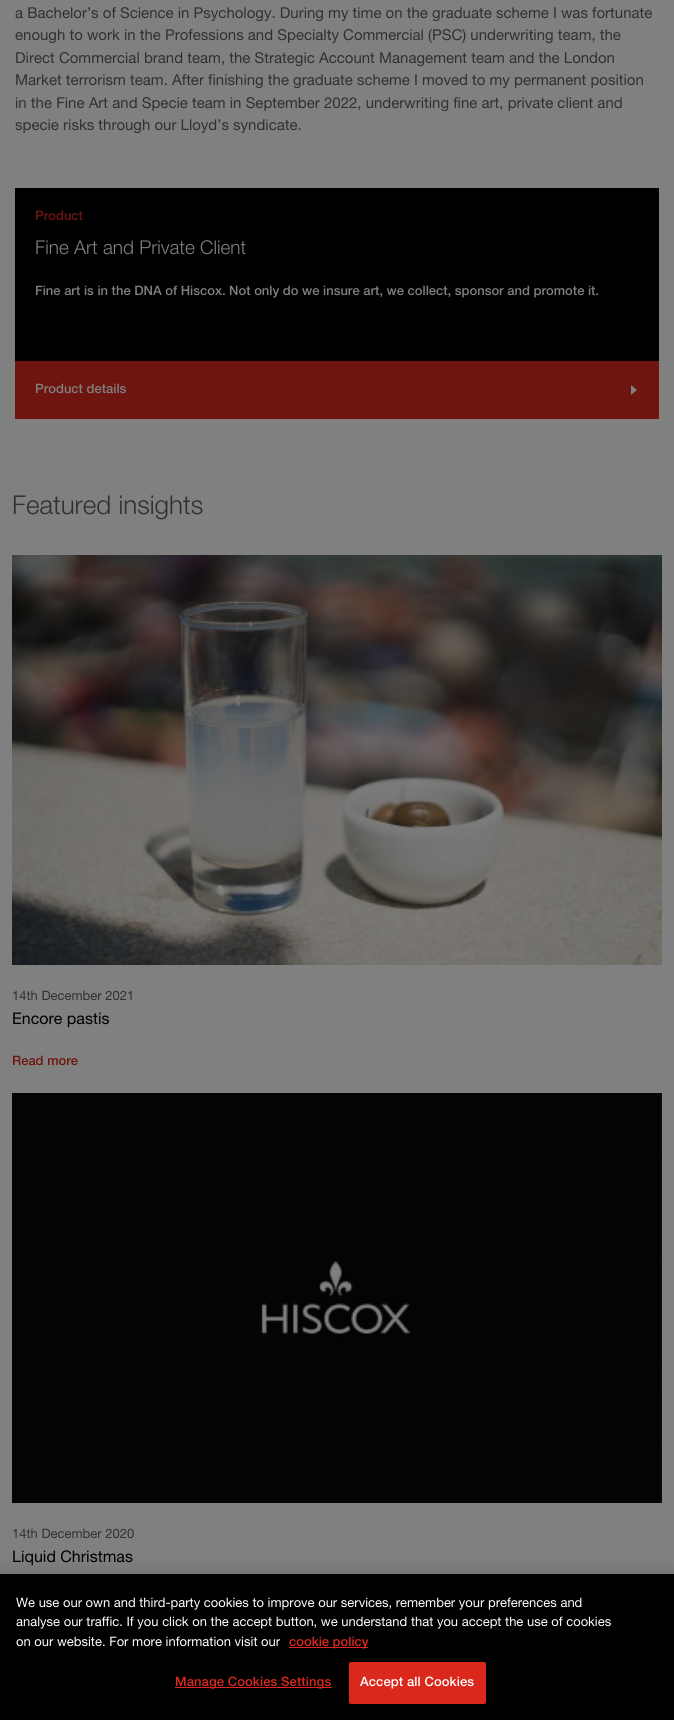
import math
import cairo

surface = cairo.ImageSurface(cairo.FORMAT_RGB24, 674, 1720)
ctx = cairo.Context(surface)
options = cairo.FontOptions()
options.set_hint_metrics(cairo.HINT_METRICS_OFF)
options.set_hint_style(cairo.HINT_STYLE_NONE)
ctx.set_font_options(options)
ctx.set_miter_limit(4)


def set_color(code):
    ctx.set_source_rgb(*(v / 255 for v in bytes.fromhex(code[-6:])))


def draw_text(x, y, s, family, size, color, bold=False, italic=False):
    ctx.select_font_face(family, cairo.FONT_SLANT_ITALIC if italic else cairo.FONT_SLANT_NORMAL, cairo.FONT_WEIGHT_BOLD if bold else cairo.FONT_WEIGHT_NORMAL)
    ctx.set_font_size(size)
    set_color(color)
    ctx.move_to(x, y)
    ctx.show_text(s)


def draw_spaced(x, y, s, letter, word):
    ctx.move_to(x, y)
    for ch in s:
        ctx.show_text(ch)
        ctx.rel_move_to(letter + word * (ch == ' '), 0)


def fill_rect(x, y, w, h, color):
    set_color(color)
    ctx.rectangle(x, y, w, h)
    ctx.fill()


def rounded_rect(x, y, w, h, r):
    ctx.new_sub_path()
    for i, (u, v) in enumerate([(x + w - r, y + h - r), (x + r, y + h - r), (x + r, y + r), (x + w - r, y + r)]):
        ctx.arc(u, v, r, i * math.pi / 2, (i + 1) * math.pi / 2)
    ctx.close_path()


def draw_shadow(x, y, w, h, r, blur, alpha):
    ctx.push_group_with_content(cairo.CONTENT_ALPHA)
    ctx.set_operator(cairo.OPERATOR_SOURCE)
    for i in range(15, -16, -2):
        e = blur * i / 6
        if min(w, h) + 2 * e > 0:
            ctx.set_source_rgba(0, 0, 0, alpha * math.erfc((i - 1) / 8.5) / 2)
            rounded_rect(x - e, y - e, w + 2 * e, h + 2 * e, max(0, min(r + e + blur * .6, min(w, h) / 2 + e)))
            ctx.fill()
    ctx.mask(ctx.pop_group())


def draw_image(path, x, y, w, h):
    ctx.save()
    ctx.set_source_surface(cairo.ImageSurface.create_from_png(path), x, y)
    ctx.rectangle(x, y, w, h)
    ctx.fill()
    ctx.restore()


set_color("#808080")
ctx.paint()
draw_text(15, 18, "a Bachelor’s of Science in Psychology. During my time on the graduate scheme I was fortunate", "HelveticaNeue", 15, "#303030")
draw_text(15, 40, "enough to work in the Professions and Specialty Commercial (PSC) underwriting team, the", "HelveticaNeue", 15, "#303030")
draw_text(15, 63, "Direct Commercial brand team, the Strategic Account Management team and the London", "HelveticaNeue", 15, "#303030")
draw_text(15, 85, "Market terrorism team. After finishing the graduate scheme I moved to my permanent position", "HelveticaNeue", 15, "#303030")
draw_text(15, 108, "in the Fine Art and Specie team in September 2022, underwriting fine art, private client and", "HelveticaNeue", 15, "#303030")
draw_text(15, 130, "specie risks through our Lloyd’s syndicate.", "HelveticaNeue", 15, "#303030")
fill_rect(15, 188, 644, 173, "#000000")
draw_text(35, 220, "Product", "HelveticaNeue", 13, "#6d150e", bold=True)
draw_text(35, 254, "Fine Art and Private Client", "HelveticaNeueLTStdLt", 19, "#808080")
draw_text(35, 295, "Fine art is in the DNA of Hiscox. Not only do we insure art, we collect, sponsor and promote it.", "HelveticaNeue", 13, "#808080", bold=True)
fill_rect(15, 361, 644, 58, "#6d150e")
set_color("#808080")
ctx.new_path()
ctx.move_to(631, 395)
ctx.line_to(631, 385)
ctx.line_to(637, 390)
ctx.close_path()
ctx.fill()
draw_text(35, 393, "Product details", "HelveticaNeue", 13, "#808080", bold=True)
draw_text(12, 514, "Featured insights", "HelveticaNeueLTStdLt", 26, "#303030")
draw_image("assets/img1.png", 12, 555, 650, 410)
draw_text(12, 1000, "14th December 2021", "HelveticaNeue", 13, "#303030")
draw_text(12, 1024, "Encore pastis", "HelveticaNeue", 16, "#000000")
draw_text(12, 1065, "Read more", "HelveticaNeue", 13, "#6d150e", bold=True)
draw_image("assets/img2.png", 12, 1093, 650, 410)
draw_text(12, 1538, "14th December 2020", "HelveticaNeue", 13, "#303030")
draw_text(12, 1562, "Liquid Christmas", "HelveticaNeue", 16, "#000000")
set_color("#000000")
draw_shadow(0, 1574, 674, 146, 0, 9, 0.2)
fill_rect(0, 1574, 674, 146, "#000000")
draw_text(16, 1607, "We use our own and third-party cookies to improve our services, remember your preferences and", "HelveticaNeue", 13, "#ffffff")
draw_text(16, 1626, "analyse our traffic. If you click on the accept button, we understand that you accept the use of cookies", "HelveticaNeue", 13, "#ffffff")
draw_text(16, 1646, "on our website. For more information visit our", "HelveticaNeue", 13, "#ffffff")
fill_rect(289, 1647, 79, 1, "#da291c")
draw_text(289, 1646, "cookie policy", "HelveticaNeue", 13, "#da291c", bold=True)
fill_rect(175, 1687, 157, 1, "#da291c")
draw_spaced(175, 1686, "Manage Cookies Settings", 0.1, 0)
rounded_rect(349.5, 1662.5, 136, 41, 1.5)
ctx.fill_preserve()
ctx.set_line_width(1)
ctx.stroke()
set_color("#ffffff")
draw_spaced(360, 1686, "Accept all Cookies", 0.1, 0)
surface.write_to_png("output.png")
